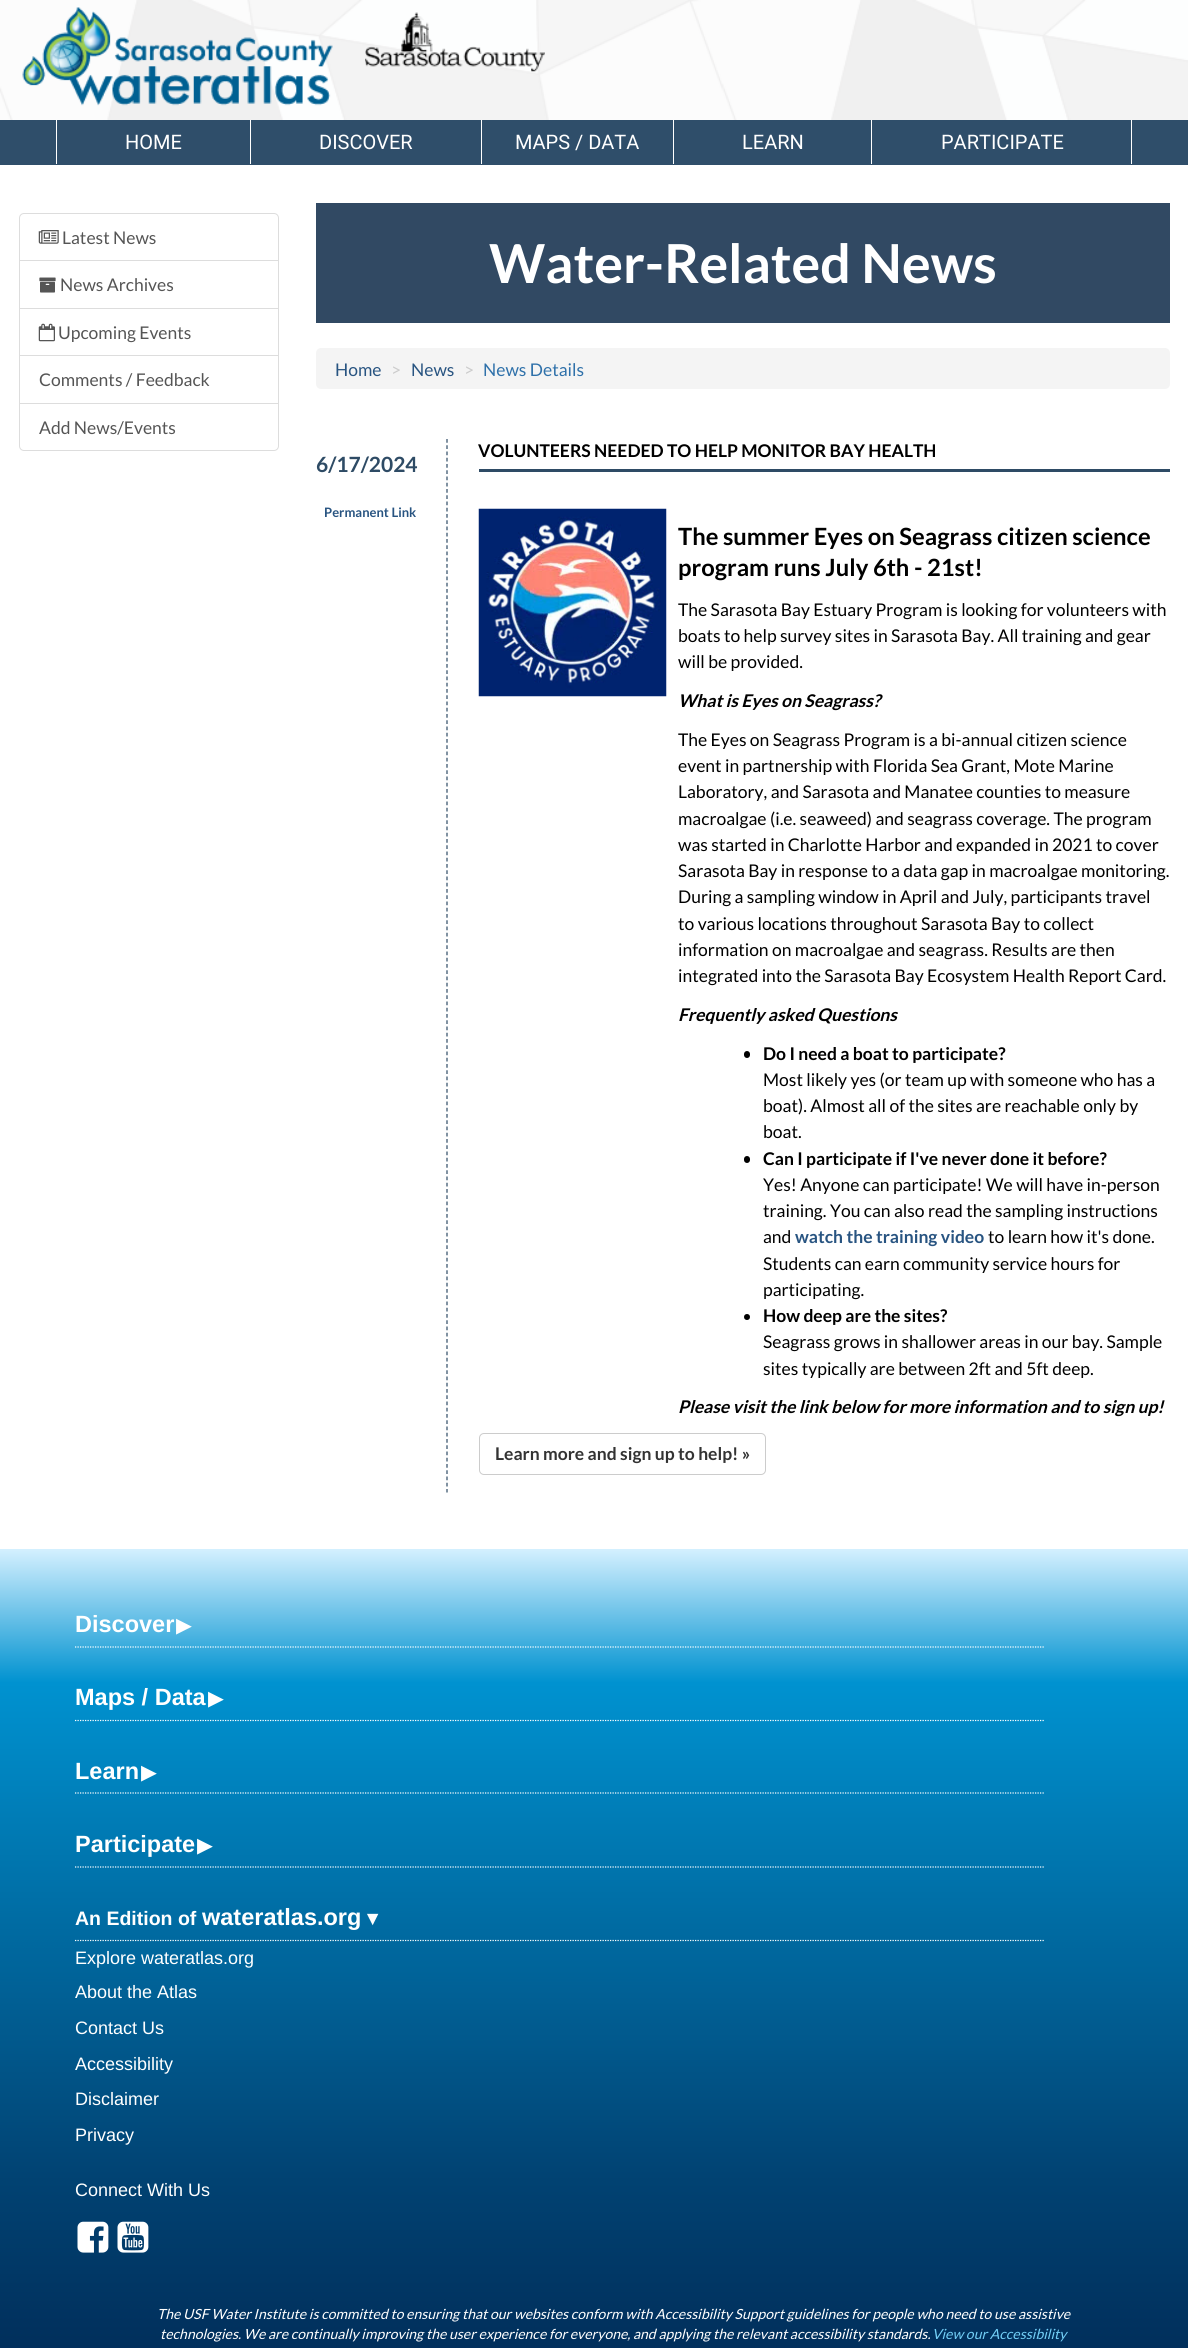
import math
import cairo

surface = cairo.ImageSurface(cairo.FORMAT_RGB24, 1188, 2348)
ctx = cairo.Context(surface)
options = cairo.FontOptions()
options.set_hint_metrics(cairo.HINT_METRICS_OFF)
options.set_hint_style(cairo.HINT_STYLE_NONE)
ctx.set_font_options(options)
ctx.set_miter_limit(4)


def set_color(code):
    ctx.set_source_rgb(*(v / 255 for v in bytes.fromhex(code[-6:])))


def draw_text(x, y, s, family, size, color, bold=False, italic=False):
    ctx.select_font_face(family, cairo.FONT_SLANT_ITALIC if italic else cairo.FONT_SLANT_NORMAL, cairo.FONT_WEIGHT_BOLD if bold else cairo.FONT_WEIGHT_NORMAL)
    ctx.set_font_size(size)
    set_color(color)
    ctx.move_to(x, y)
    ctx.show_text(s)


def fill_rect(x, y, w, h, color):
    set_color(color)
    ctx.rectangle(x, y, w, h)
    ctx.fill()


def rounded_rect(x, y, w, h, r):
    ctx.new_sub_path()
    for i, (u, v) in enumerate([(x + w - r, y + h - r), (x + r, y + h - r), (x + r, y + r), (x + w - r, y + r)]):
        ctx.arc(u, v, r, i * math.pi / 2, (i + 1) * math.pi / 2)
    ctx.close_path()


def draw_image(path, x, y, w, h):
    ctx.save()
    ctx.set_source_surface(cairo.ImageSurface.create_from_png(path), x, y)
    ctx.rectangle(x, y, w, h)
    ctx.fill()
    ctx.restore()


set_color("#ffffff")
ctx.paint()
draw_image("assets/img1.png", 0, 0, 1188, 120)
draw_image("assets/img2.png", 22, 7, 311, 99)
draw_image("assets/img3.png", 365, 12, 180, 60)
fill_rect(0, 120, 1188, 45, "#2f4e6a")
fill_rect(250, 120, 1, 44, "#ffffff")
fill_rect(56, 120, 1, 44, "#ffffff")
draw_text(125, 149, "HOME", "Roboto", 20, "#ffffff")
fill_rect(481, 120, 1, 44, "#ffffff")
draw_text(319, 149, "DISCOVER", "Roboto", 20, "#ffffff")
fill_rect(673, 120, 1, 44, "#ffffff")
draw_text(515, 149, "MAPS / DATA", "Roboto", 20, "#ffffff")
fill_rect(871, 120, 1, 44, "#ffffff")
draw_text(742, 149, "LEARN", "Roboto", 20, "#ffffff")
fill_rect(1131, 120, 1, 44, "#ffffff")
draw_text(941, 149, "PARTICIPATE", "Roboto", 20, "#ffffff")
ctx.new_path()
ctx.move_to(24, 213.5)
ctx.line_to(274, 213.5)
ctx.curve_to(276.5, 213.5, 278.5, 215.5, 278.5, 218)
ctx.line_to(278.5, 260.5)
ctx.line_to(19.5, 260.5)
ctx.line_to(19.5, 218)
ctx.curve_to(19.5, 215.5, 21.5, 213.5, 24, 213.5)
ctx.close_path()
set_color("#dddddd")
ctx.set_line_width(1)
ctx.stroke()
draw_image("assets/img4.png", 38, 230, 21, 14)
draw_text(62, 244, "Latest News", "Lato", 17.5, "#555555")
ctx.rectangle(19.5, 260.5, 259, 48)
set_color("#dddddd")
ctx.stroke()
draw_image("assets/img5.png", 39, 277, 17, 16)
draw_text(60, 291, "News Archives", "Lato", 17.5, "#555555")
ctx.rectangle(19.5, 308.5, 259, 47)
set_color("#dddddd")
ctx.stroke()
draw_image("assets/img6.png", 38, 323, 17, 19)
draw_text(58, 339, "Upcoming Events", "Lato", 17.5, "#555555")
ctx.rectangle(19.5, 355.5, 259, 48)
set_color("#dddddd")
ctx.stroke()
draw_text(39, 386, "Comments / Feedback", "Lato", 17.5, "#555555")
set_color("#ffffff")
ctx.new_path()
ctx.move_to(19.5, 403.5)
ctx.line_to(278.5, 403.5)
ctx.line_to(278.5, 446)
ctx.curve_to(278.5, 448.5, 276.5, 450.5, 274, 450.5)
ctx.line_to(24, 450.5)
ctx.curve_to(21.5, 450.5, 19.5, 448.5, 19.5, 446)
ctx.close_path()
ctx.fill_preserve()
set_color("#dddddd")
ctx.stroke()
draw_text(39, 434, "Add News/Events", "Lato", 17.5, "#555555")
fill_rect(316, 203, 854, 120, "#314963")
draw_text(489, 283, "Water-Related News", "Lato", 53.75, "#ffffff", bold=True)
set_color("#f4f4f4")
rounded_rect(316, 348, 854, 41, 5)
ctx.fill()
draw_text(335, 376, "Home", "Lato", 17.5, "#285481")
draw_text(391, 376, ">", "Lato", 17.5, "#cccccc")
draw_text(411, 376, "News", "Lato", 17.5, "#285481")
draw_text(464, 376, ">", "Lato", 17.5, "#cccccc")
draw_text(483, 376, "News Details", "Lato", 17.5, "#2f71aa")
draw_text(316, 472, "6/17/2024", "Lato", 21, "#2e4b65", bold=True)
draw_text(324, 517, "Permanent Link", "Lato", 13, "#285481", bold=True)
ctx.new_path()
ctx.move_to(447, 439)
ctx.line_to(447, 1492.5)
set_color("#2e4b65")
ctx.set_line_width(1.2)
ctx.set_dash([3.75, 2.5])
ctx.stroke()
fill_rect(479, 469, 691, 3, "#2e4b65")
draw_text(478, 457, "VOLUNTEERS NEEDED TO HELP MONITOR BAY HEALTH", "Lato", 17.5, "#000000", bold=True)
draw_image("assets/img7.png", 478, 508, 189, 189)
draw_text(678, 545, "The summer Eyes on Seagrass citizen science", "Lato", 23.75, "#000000", bold=True)
draw_text(678, 576, "program runs July 6th - 21st!", "Lato", 23.75, "#000000", bold=True)
draw_text(678, 616, "The Sarasota Bay Estuary Program is looking for volunteers with", "Lato", 17.5, "#000000")
draw_text(678, 642, "boats to help survey sites in Sarasota Bay. All training and gear", "Lato", 17.5, "#000000")
draw_text(678, 668, "will be provided.", "Lato", 17.5, "#000000")
draw_text(678, 707, "What is Eyes on Seagrass?", "Lato", 17.5, "#000000", bold=True, italic=True)
draw_text(678, 746, "The Eyes on Seagrass Program is a bi-annual citizen science", "Lato", 17.5, "#000000")
draw_text(678, 772, "event in partnership with Florida Sea Grant, Mote Marine", "Lato", 17.5, "#000000")
draw_text(678, 798, "Laboratory, and Sarasota and Manatee counties to measure", "Lato", 17.5, "#000000")
draw_text(678, 825, "macroalgae (i.e. seaweed) and seagrass coverage. The program", "Lato", 17.5, "#000000")
draw_text(678, 851, "was started in Charlotte Harbor and expanded in 2021 to cover", "Lato", 17.5, "#000000")
draw_text(678, 877, "Sarasota Bay in response to a data gap in macroalgae monitoring.", "Lato", 17.5, "#000000")
draw_text(678, 903, "During a sampling window in April and July, participants travel", "Lato", 17.5, "#000000")
draw_text(678, 930, "to various locations throughout Sarasota Bay to collect", "Lato", 17.5, "#000000")
draw_text(678, 956, "information on macroalgae and seagrass. Results are then", "Lato", 17.5, "#000000")
draw_text(678, 982, "integrated into the Sarasota Bay Ecosystem Health Report Card.", "Lato", 17.5, "#000000")
draw_text(678, 1021, "Frequently asked Questions", "Lato", 17.5, "#000000", bold=True, italic=True)
rounded_rect(744, 1051, 6, 7, 3)
ctx.fill()
draw_text(763, 1060, "Do I need a boat to participate?", "Lato", 17.5, "#000000", bold=True)
draw_text(763, 1086, "Most likely yes (or team up with someone who has a", "Lato", 17.5, "#000000")
draw_text(763, 1112, "boat). Almost all of the sites are reachable only by", "Lato", 17.5, "#000000")
draw_text(763, 1138, "boat.", "Lato", 17.5, "#000000")
rounded_rect(744, 1156, 6, 7, 3)
ctx.fill()
draw_text(763, 1165, "Can I participate if I've never done it before?", "Lato", 17.5, "#000000", bold=True)
draw_text(763, 1191, "Yes! Anyone can participate! We will have in-person", "Lato", 17.5, "#000000")
draw_text(763, 1217, "training. You can also read the sampling instructions", "Lato", 17.5, "#000000")
draw_text(763, 1243, "and", "Lato", 17.5, "#000000")
draw_text(795, 1243, "watch the training video", "Lato", 17.5, "#285481", bold=True)
draw_text(988, 1243, "to learn how it's done.", "Lato", 17.5, "#000000")
draw_text(763, 1270, "Students can earn community service hours for", "Lato", 17.5, "#000000")
draw_text(763, 1296, "participating.", "Lato", 17.5, "#000000")
ctx.new_path()
ctx.arc(747, 1317, 3, 0, 2 * math.pi)
ctx.fill()
draw_text(763, 1322, "How deep are the sites?", "Lato", 17.5, "#000000", bold=True)
draw_text(763, 1348, "Seagrass grows in shallower areas in our bay. Sample", "Lato", 17.5, "#000000")
draw_text(763, 1375, "sites typically are between 2ft and 5ft deep.", "Lato", 17.5, "#000000")
draw_text(678, 1413, "Please visit the link below for more information and to sign up!", "Lato", 17.5, "#000000", bold=True, italic=True)
rounded_rect(479.5, 1433.5, 286, 41, 4.5)
set_color("#cccccc")
ctx.set_line_width(1)
ctx.set_dash([])
ctx.stroke()
draw_text(495, 1460, "Learn more and sign up to help! »", "Lato", 17.5, "#333333", bold=True)
gradient = cairo.LinearGradient(594, 1549, 594, 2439)
gradient.add_color_stop_rgba(0, 0.831, 0.941, 1, 1)
gradient.add_color_stop_rgba(0.15, 0, 0.573, 0.816, 1)
gradient.add_color_stop_rgba(0.27, 0, 0.506, 0.737, 1)
gradient.add_color_stop_rgba(0.71, 0.004, 0.259, 0.447, 1)
gradient.add_color_stop_rgba(0.92, 0.004, 0.176, 0.349, 1)
gradient.add_color_stop_rgba(0.99, 0.004, 0.157, 0.329, 1)
gradient.add_color_stop_rgba(1, 0.02, 0.173, 0.337, 1)
gradient.add_color_stop_rgba(1, 0.647, 0.733, 0.78, 1)
ctx.set_source(gradient)
ctx.rectangle(0, 1549, 1188, 799)
ctx.fill()
ctx.new_path()
ctx.move_to(75, 1647)
ctx.line_to(1044, 1647)
set_color("#ffffff")
ctx.set_line_width(1.2)
ctx.set_dash([1.25, 1.25])
ctx.stroke()
draw_text(75, 1632, "Discover", "Liberation Sans", 23.5, "#ffffff", bold=True)
draw_text(176, 1632, "▶", "DejaVu Sans", 19.5, "#ffffff", bold=True)
ctx.new_path()
ctx.move_to(75, 1720.5)
ctx.line_to(1044, 1720.5)
ctx.stroke()
draw_text(75, 1705, "Maps / Data", "Liberation Sans", 23.5, "#ffffff", bold=True)
draw_text(208, 1705, "▶", "DejaVu Sans", 19.5, "#ffffff", bold=True)
ctx.new_path()
ctx.move_to(75, 1793)
ctx.line_to(1044, 1793)
ctx.stroke()
draw_text(75, 1779, "Learn", "Liberation Sans", 23.5, "#ffffff", bold=True)
draw_text(141, 1779, "▶", "DejaVu Sans", 19.5, "#ffffff", bold=True)
ctx.new_path()
ctx.move_to(75, 1867)
ctx.line_to(1044, 1867)
ctx.stroke()
draw_text(75, 1852, "Participate", "Liberation Sans", 23.5, "#ffffff", bold=True)
draw_text(197, 1852, "▶", "DejaVu Sans", 19.5, "#ffffff", bold=True)
ctx.new_path()
ctx.move_to(75, 1940.5)
ctx.line_to(1044, 1940.5)
ctx.stroke()
draw_text(75, 1925, "An Edition of", "Liberation Sans", 19.5, "#ffffff", bold=True)
draw_text(202, 1925, "wateratlas.org", "Liberation Sans", 23.5, "#ffffff", bold=True)
draw_text(363, 1925, "▼", "Liberation Sans", 19.5, "#ffffff", bold=True)
draw_text(75, 1964, "Explore wateratlas.org", "Liberation Sans", 18, "#ffffff")
draw_text(75, 1998, "About the Atlas", "Liberation Sans", 18, "#ffffff")
draw_text(75, 2034, "Contact Us", "Liberation Sans", 18, "#ffffff")
draw_text(75, 2070, "Accessibility", "Liberation Sans", 18, "#ffffff")
draw_text(75, 2105, "Disclaimer", "Liberation Sans", 18, "#ffffff")
draw_text(75, 2141, "Privacy", "Liberation Sans", 18, "#ffffff")
draw_text(75, 2196, "Connect With Us", "Liberation Sans", 18, "#ffffff")
draw_image("assets/img8.png", 77, 2221, 32, 32)
draw_image("assets/img9.png", 117, 2221, 32, 32)
draw_text(157, 2319, "The USF Water Institute is committed to ensuring that our websites conform with Accessibility Support guidelines for people who need to use assistive", "Lato", 14, "#ffffff", italic=True)
draw_text(160, 2339, "technologies. We are continually improving the user experience for everyone, and applying the relevant accessibility standards.", "Lato", 14, "#ffffff", italic=True)
draw_text(932, 2339, "View our Accessibility", "Lato", 14, "#73cff7", italic=True)
surface.write_to_png("output.png")
